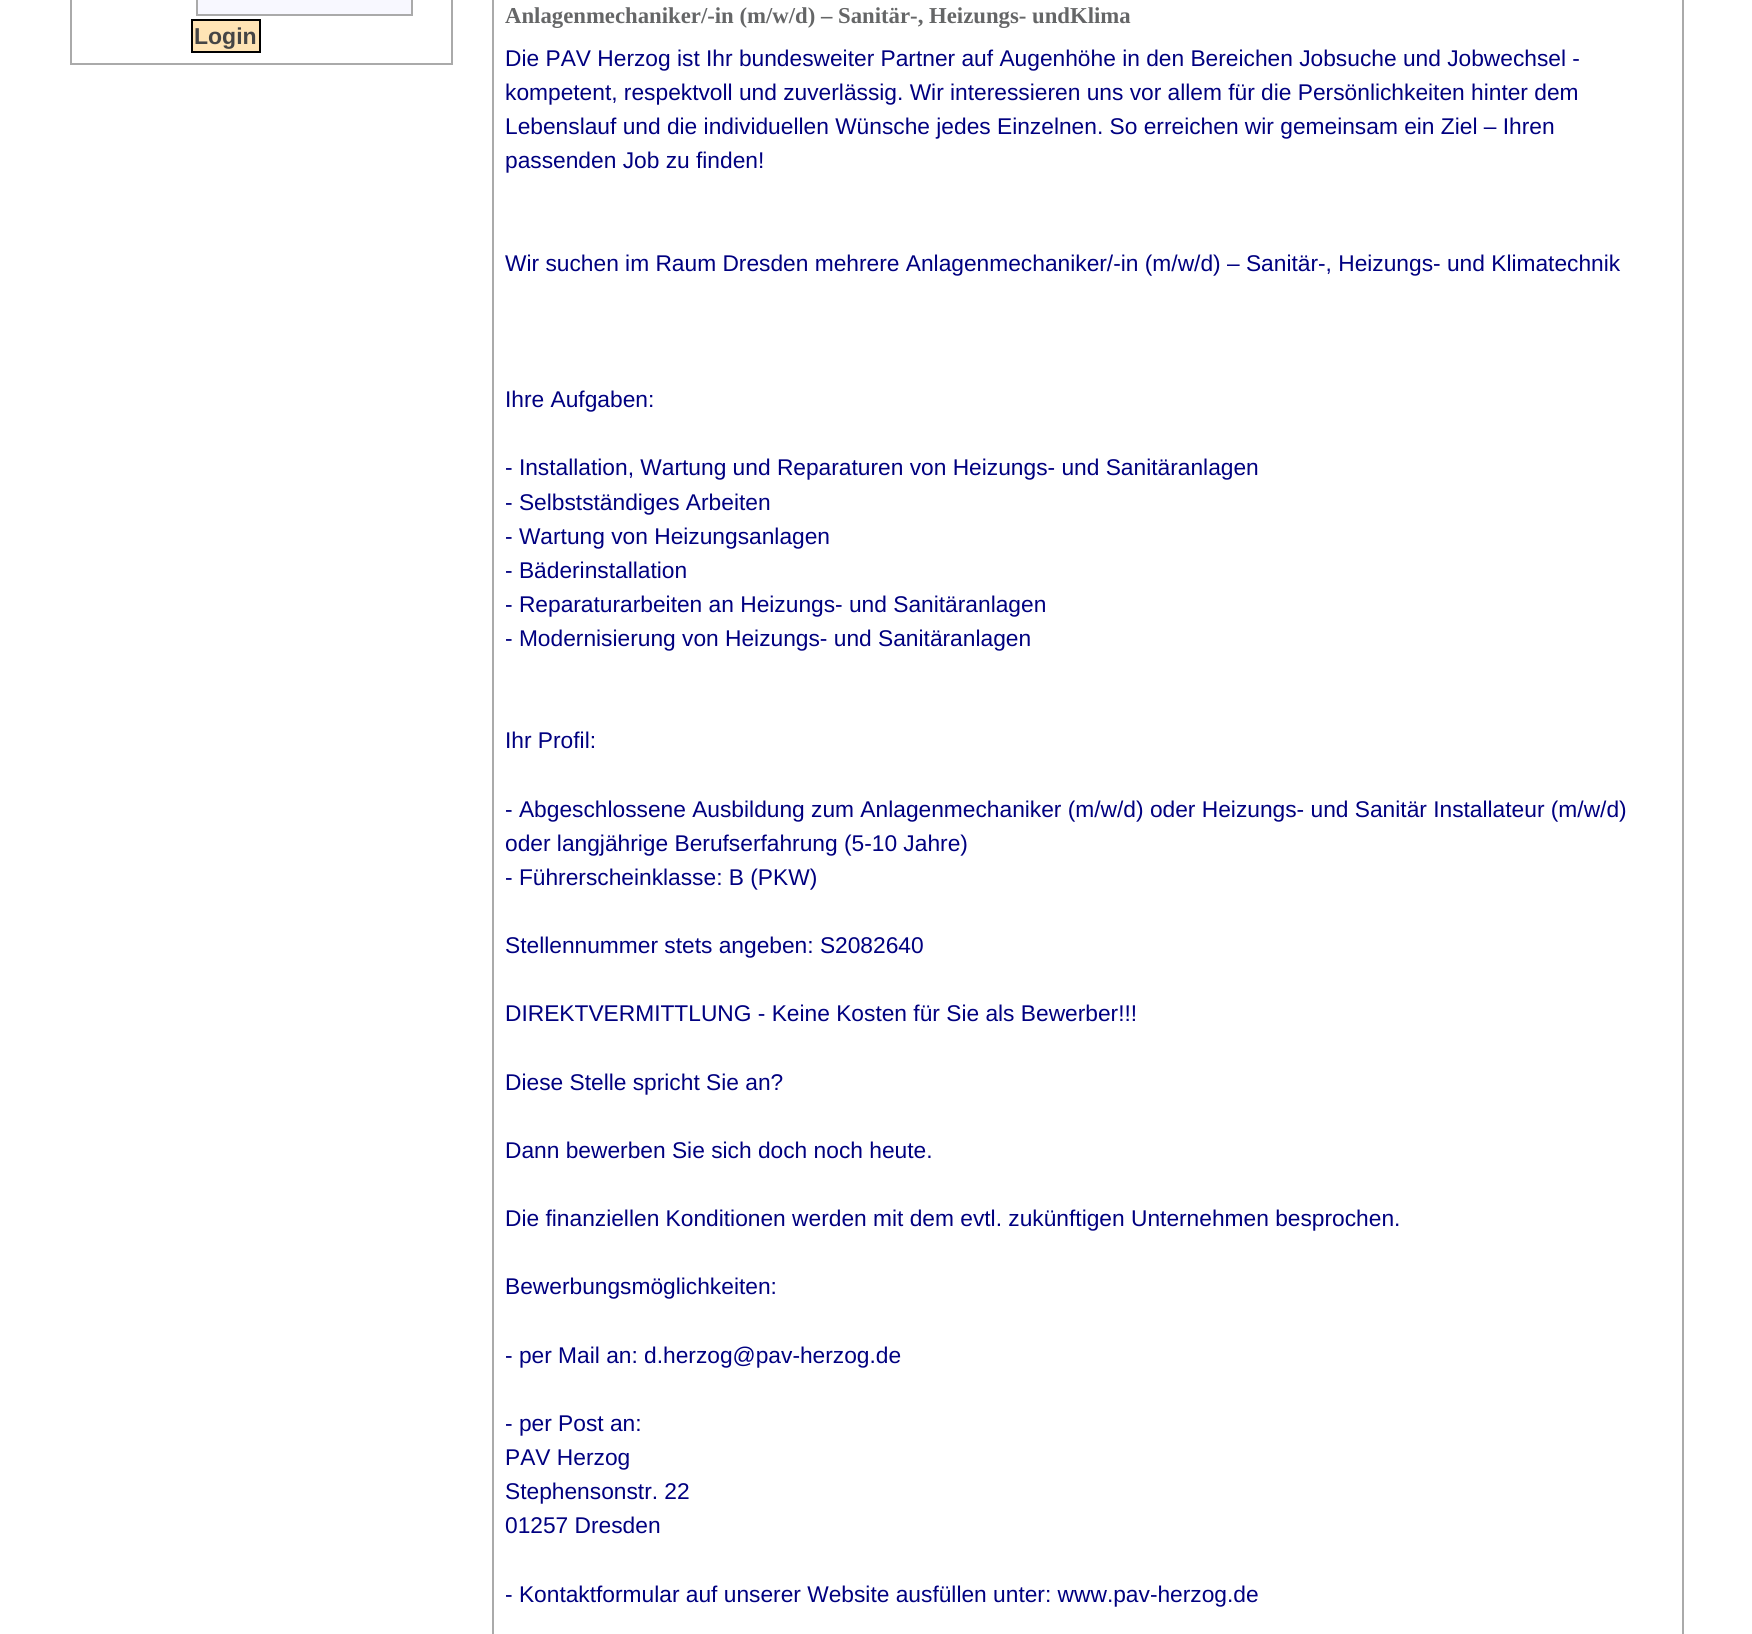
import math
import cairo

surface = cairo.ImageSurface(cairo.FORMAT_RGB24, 1752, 1634)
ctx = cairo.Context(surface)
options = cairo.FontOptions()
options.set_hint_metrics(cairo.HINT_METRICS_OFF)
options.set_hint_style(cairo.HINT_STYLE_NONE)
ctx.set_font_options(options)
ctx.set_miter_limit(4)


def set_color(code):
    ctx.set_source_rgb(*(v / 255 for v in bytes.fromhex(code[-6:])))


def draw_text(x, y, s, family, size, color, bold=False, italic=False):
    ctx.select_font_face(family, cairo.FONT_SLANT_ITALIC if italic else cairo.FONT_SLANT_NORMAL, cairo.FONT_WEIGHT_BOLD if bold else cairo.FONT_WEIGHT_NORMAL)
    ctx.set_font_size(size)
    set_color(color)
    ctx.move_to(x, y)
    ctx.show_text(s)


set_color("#ffffff")
ctx.paint()
ctx.rectangle(71, -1, 381, 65)
set_color("#aaaaaa")
ctx.stroke()
set_color("#f8f8ff")
ctx.rectangle(197, -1, 215, 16)
ctx.fill_preserve()
set_color("#aaaaaa")
ctx.stroke()
set_color("#ffe4b5")
ctx.rectangle(192, 20, 68, 32)
ctx.fill_preserve()
set_color("#000000")
ctx.stroke()
draw_text(194, 44, "Login", "Liberation Sans", 23, "#454545", bold=True)
ctx.rectangle(493, -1, 1190, 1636)
set_color("#aaaaaa")
ctx.stroke()
draw_text(505, 23, "Anlagenmechaniker/-in (m/w/d) – Sanitär-, Heizungs- undKlima", "Liberation Serif", 22.75, "#656667", bold=True)
draw_text(505, 66, "Die PAV Herzog ist Ihr bundesweiter Partner auf Augenhöhe in den Bereichen Jobsuche und Jobwechsel -", "Liberation Sans", 22.75, "#000080")
draw_text(505, 100, "kompetent, respektvoll und zuverlässig. Wir interessieren uns vor allem für die Persönlichkeiten hinter dem", "Liberation Sans", 22.75, "#000080")
draw_text(505, 134, "Lebenslauf und die individuellen Wünsche jedes Einzelnen. So erreichen wir gemeinsam ein Ziel – Ihren", "Liberation Sans", 22.75, "#000080")
draw_text(505, 168, "passenden Job zu finden!", "Liberation Sans", 22.75, "#000080")
draw_text(505, 271, "Wir suchen im Raum Dresden mehrere Anlagenmechaniker/-in (m/w/d) – Sanitär-, Heizungs- und Klimatechnik", "Liberation Sans", 22.75, "#000080")
draw_text(505, 407, "Ihre Aufgaben:", "Liberation Sans", 22.75, "#000080")
draw_text(505, 475, "- Installation, Wartung und Reparaturen von Heizungs- und Sanitäranlagen", "Liberation Sans", 22.75, "#000080")
draw_text(505, 510, "- Selbstständiges Arbeiten", "Liberation Sans", 22.75, "#000080")
draw_text(505, 544, "- Wartung von Heizungsanlagen", "Liberation Sans", 22.75, "#000080")
draw_text(505, 578, "- Bäderinstallation", "Liberation Sans", 22.75, "#000080")
draw_text(505, 612, "- Reparaturarbeiten an Heizungs- und Sanitäranlagen", "Liberation Sans", 22.75, "#000080")
draw_text(505, 646, "- Modernisierung von Heizungs- und Sanitäranlagen", "Liberation Sans", 22.75, "#000080")
draw_text(505, 748, "Ihr Profil:", "Liberation Sans", 22.75, "#000080")
draw_text(505, 817, "- Abgeschlossene Ausbildung zum Anlagenmechaniker (m/w/d) oder Heizungs- und Sanitär Installateur (m/w/d)", "Liberation Sans", 22.75, "#000080")
draw_text(505, 851, "oder langjährige Berufserfahrung (5-10 Jahre)", "Liberation Sans", 22.75, "#000080")
draw_text(505, 885, "- Führerscheinklasse: B (PKW)", "Liberation Sans", 22.75, "#000080")
draw_text(505, 953, "Stellennummer stets angeben: S2082640", "Liberation Sans", 22.75, "#000080")
draw_text(505, 1021, "DIREKTVERMITTLUNG - Keine Kosten für Sie als Bewerber!!!", "Liberation Sans", 22.75, "#000080")
draw_text(505, 1090, "Diese Stelle spricht Sie an?", "Liberation Sans", 22.75, "#000080")
draw_text(505, 1158, "Dann bewerben Sie sich doch noch heute.", "Liberation Sans", 22.75, "#000080")
draw_text(505, 1226, "Die finanziellen Konditionen werden mit dem evtl. zukünftigen Unternehmen besprochen.", "Liberation Sans", 22.75, "#000080")
draw_text(505, 1294, "Bewerbungsmöglichkeiten:", "Liberation Sans", 22.75, "#000080")
draw_text(505, 1363, "- per Mail an: d.herzog@pav-herzog.de", "Liberation Sans", 22.75, "#000080")
draw_text(505, 1431, "- per Post an:", "Liberation Sans", 22.75, "#000080")
draw_text(505, 1465, "PAV Herzog", "Liberation Sans", 22.75, "#000080")
draw_text(505, 1499, "Stephensonstr. 22", "Liberation Sans", 22.75, "#000080")
draw_text(505, 1533, "01257 Dresden", "Liberation Sans", 22.75, "#000080")
draw_text(505, 1602, "- Kontaktformular auf unserer Website ausfüllen unter: www.pav-herzog.de", "Liberation Sans", 22.75, "#000080")
surface.write_to_png("output.png")
